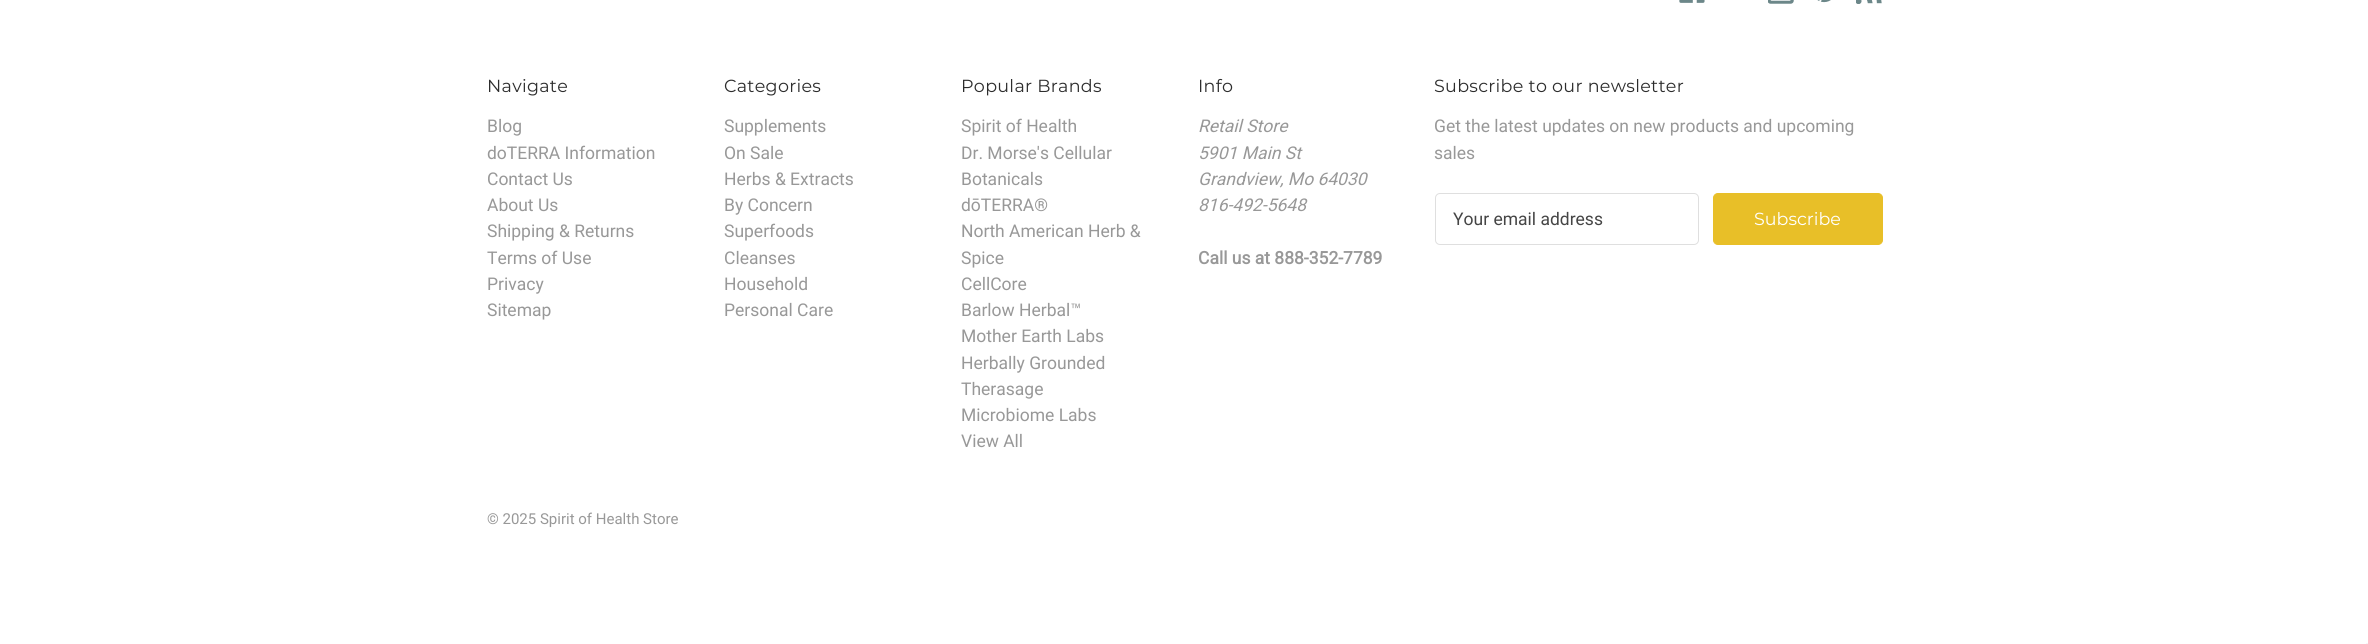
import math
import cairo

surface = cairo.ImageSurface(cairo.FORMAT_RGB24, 2368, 644)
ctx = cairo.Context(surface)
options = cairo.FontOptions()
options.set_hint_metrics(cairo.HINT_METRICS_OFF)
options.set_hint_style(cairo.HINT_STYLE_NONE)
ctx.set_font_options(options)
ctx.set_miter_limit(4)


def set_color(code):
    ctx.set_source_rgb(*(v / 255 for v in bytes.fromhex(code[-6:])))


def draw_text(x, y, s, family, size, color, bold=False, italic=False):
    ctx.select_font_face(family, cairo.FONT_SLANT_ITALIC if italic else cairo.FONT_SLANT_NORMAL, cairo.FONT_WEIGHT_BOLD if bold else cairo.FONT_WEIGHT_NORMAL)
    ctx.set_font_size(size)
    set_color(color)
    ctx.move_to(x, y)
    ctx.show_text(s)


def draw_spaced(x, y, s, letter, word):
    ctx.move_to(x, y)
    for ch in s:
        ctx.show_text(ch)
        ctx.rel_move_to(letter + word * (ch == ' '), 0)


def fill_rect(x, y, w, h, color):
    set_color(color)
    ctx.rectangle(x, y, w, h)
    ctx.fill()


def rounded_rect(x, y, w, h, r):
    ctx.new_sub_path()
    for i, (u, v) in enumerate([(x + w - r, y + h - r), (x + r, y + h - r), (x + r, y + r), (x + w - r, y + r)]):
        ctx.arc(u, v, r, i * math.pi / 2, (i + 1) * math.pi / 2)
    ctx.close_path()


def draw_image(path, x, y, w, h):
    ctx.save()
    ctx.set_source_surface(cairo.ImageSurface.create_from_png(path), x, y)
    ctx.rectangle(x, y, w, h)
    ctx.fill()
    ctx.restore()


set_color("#ffffff")
ctx.paint()
draw_image("assets/img1.png", 1679, 0, 26, 3)
draw_image("assets/img2.png", 1768, 0, 26, 4)
draw_image("assets/img3.png", 1817, 0, 14, 3)
draw_image("assets/img4.png", 1856, 0, 26, 4)
ctx.select_font_face("Montserrat Thin")
ctx.set_font_size(17.5)
set_color("#2d2d2d")
draw_spaced(487, 92, "Navigate", 0.3, 0)
draw_text(487, 132, "Blog", "Roboto", 17.5, "#989898")
draw_text(487, 159, "doTERRA Information", "Roboto", 17.5, "#989898")
draw_text(487, 185, "Contact Us", "Roboto", 17.5, "#989898")
draw_text(487, 211, "About Us", "Roboto", 17.5, "#989898")
draw_text(487, 237, "Shipping & Returns", "Roboto", 17.5, "#989898")
draw_text(487, 264, "Terms of Use", "Roboto", 17.5, "#989898")
draw_text(487, 290, "Privacy", "Roboto", 17.5, "#989898")
draw_text(487, 316, "Sitemap", "Roboto", 17.5, "#989898")
ctx.select_font_face("Montserrat Thin")
set_color("#2d2d2d")
draw_spaced(724, 92, "Categories", 0.3, 0)
draw_text(724, 132, "Supplements", "Roboto", 17.5, "#989898")
draw_text(724, 159, "On Sale", "Roboto", 17.5, "#989898")
draw_text(724, 185, "Herbs & Extracts", "Roboto", 17.5, "#989898")
draw_text(724, 211, "By Concern", "Roboto", 17.5, "#989898")
draw_text(724, 237, "Superfoods", "Roboto", 17.5, "#989898")
draw_text(724, 264, "Cleanses", "Roboto", 17.5, "#989898")
draw_text(724, 290, "Household", "Roboto", 17.5, "#989898")
draw_text(724, 316, "Personal Care", "Roboto", 17.5, "#989898")
ctx.select_font_face("Montserrat Thin")
set_color("#2d2d2d")
draw_spaced(961, 92, "Popular Brands", 0.3, 0)
draw_text(961, 132, "Spirit of Health", "Roboto", 17.5, "#989898")
draw_text(961, 159, "Dr. Morse's Cellular", "Roboto", 17.5, "#989898")
draw_text(961, 185, "Botanicals", "Roboto", 17.5, "#989898")
draw_text(961, 211, "dōTERRA®", "Roboto", 17.5, "#989898")
draw_text(961, 237, "North American Herb &", "Roboto", 17.5, "#989898")
draw_text(961, 264, "Spice", "Roboto", 17.5, "#989898")
draw_text(961, 290, "CellCore", "Roboto", 17.5, "#989898")
draw_text(961, 316, "Barlow Herbal™", "Roboto", 17.5, "#989898")
draw_text(961, 342, "Mother Earth Labs", "Roboto", 17.5, "#989898")
draw_text(961, 369, "Herbally Grounded", "Roboto", 17.5, "#989898")
draw_text(961, 395, "Therasage", "Roboto", 17.5, "#989898")
draw_text(961, 421, "Microbiome Labs", "Roboto", 17.5, "#989898")
draw_text(961, 447, "View All", "Roboto", 17.5, "#989898")
ctx.select_font_face("Montserrat Thin")
set_color("#2d2d2d")
draw_spaced(1198, 92, "Info", 0.3, 0)
draw_text(1198, 132, "Retail Store", "Roboto", 17.5, "#989898", italic=True)
draw_text(1198, 159, "5901 Main St", "Roboto", 17.5, "#989898", italic=True)
draw_text(1198, 185, "Grandview, Mo 64030", "Roboto", 17.5, "#989898", italic=True)
draw_text(1198, 211, "816-492-5648", "Roboto", 17.5, "#989898", italic=True)
draw_text(1198, 264, "Call us at 888-352-7789", "Roboto", 17.5, "#989898", bold=True)
ctx.select_font_face("Montserrat Thin")
set_color("#2d2d2d")
draw_spaced(1434, 92, "Subscribe to our newsletter", 0.3, 0)
draw_text(1434, 132, "Get the latest updates on new products and upcoming", "Roboto", 17.5, "#989898")
draw_text(1434, 159, "sales", "Roboto", 17.5, "#989898")
rounded_rect(1435.5, 193.5, 263, 51, 4.5)
set_color("#dfdfdf")
ctx.set_line_width(1)
ctx.stroke()
draw_text(1453, 225, "Your email address", "Roboto", 17.5, "#454545")
set_color("#e8bf28")
rounded_rect(1713.5, 193.5, 169, 51, 4.5)
ctx.fill_preserve()
ctx.stroke()
draw_text(1754, 225, "Subscribe", "Montserrat Thin", 17.5, "#ffffff")
draw_text(487, 524, "© 2025 Spirit of Health Store", "Roboto", 15, "#989898")
fill_rect(2366, 643, 2, 1, "#f5f5f5")
surface.write_to_png("output.png")
